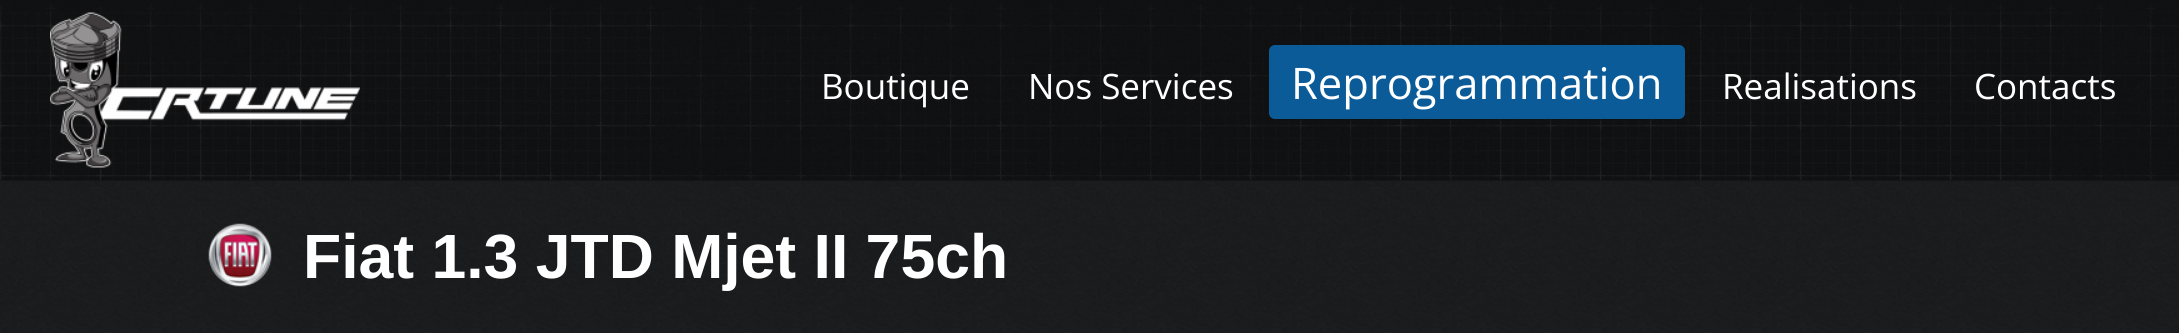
import math
import cairo

surface = cairo.ImageSurface(cairo.FORMAT_RGB24, 2179, 333)
ctx = cairo.Context(surface)
options = cairo.FontOptions()
options.set_hint_metrics(cairo.HINT_METRICS_OFF)
options.set_hint_style(cairo.HINT_STYLE_NONE)
ctx.set_font_options(options)
ctx.set_miter_limit(4)


def set_color(code):
    ctx.set_source_rgb(*(v / 255 for v in bytes.fromhex(code[-6:])))


def draw_text(x, y, s, family, size, color, bold=False, italic=False):
    ctx.select_font_face(family, cairo.FONT_SLANT_ITALIC if italic else cairo.FONT_SLANT_NORMAL, cairo.FONT_WEIGHT_BOLD if bold else cairo.FONT_WEIGHT_NORMAL)
    ctx.set_font_size(size)
    set_color(color)
    ctx.move_to(x, y)
    ctx.show_text(s)


def fill_rect(x, y, w, h, color):
    set_color(color)
    ctx.rectangle(x, y, w, h)
    ctx.fill()


def rounded_rect(x, y, w, h, r):
    ctx.new_sub_path()
    for i, (u, v) in enumerate([(x + w - r, y + h - r), (x + r, y + h - r), (x + r, y + r), (x + w - r, y + r)]):
        ctx.arc(u, v, r, i * math.pi / 2, (i + 1) * math.pi / 2)
    ctx.close_path()


def draw_image(path, x, y, w, h):
    ctx.save()
    ctx.set_source_surface(cairo.ImageSurface.create_from_png(path), x, y)
    ctx.rectangle(x, y, w, h)
    ctx.fill()
    ctx.restore()


set_color("#ffffff")
ctx.paint()
draw_image("assets/img1.png", 0, 0, 2179, 333)
ctx.set_source_rgba(0, 0, 0, 0.4)
ctx.rectangle(0, 0, 2179, 180)
ctx.fill()
draw_image("assets/img2.png", 0, 4, 2179, 176)
fill_rect(0, 180, 2179, 1, "#141519")
draw_image("assets/img3.png", 50, 12, 310, 156)
draw_text(821, 99, "Boutique", "Open Sans", 35, "#ffffff")
draw_text(1028, 99, "Nos Services", "Open Sans", 35, "#ffffff")
set_color("#0b5b99")
rounded_rect(1269, 45, 416, 74, 6)
ctx.fill()
draw_text(1291, 99, "Reprogrammation", "Open Sans", 43.5, "#ffffff")
draw_text(1722, 99, "Realisations", "Open Sans", 35, "#ffffff")
draw_text(1974, 99, "Contacts", "Open Sans", 35, "#ffffff")
draw_image("assets/img4.png", 208, 223, 64, 64)
draw_text(303, 278, "Fiat 1.3 JTD Mjet II 75ch", "Liberation Sans", 62.5, "#ffffff", bold=True)
surface.write_to_png("output.png")
